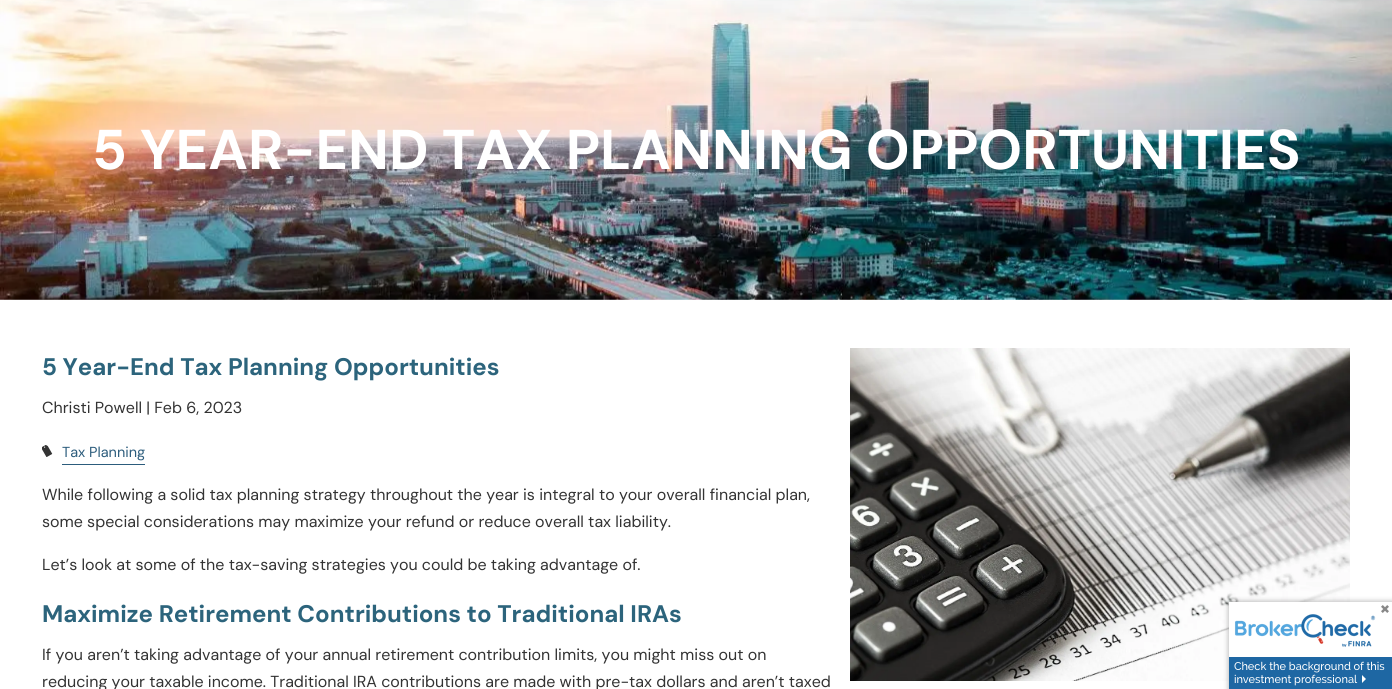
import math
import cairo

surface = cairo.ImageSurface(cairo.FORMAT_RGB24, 1392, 689)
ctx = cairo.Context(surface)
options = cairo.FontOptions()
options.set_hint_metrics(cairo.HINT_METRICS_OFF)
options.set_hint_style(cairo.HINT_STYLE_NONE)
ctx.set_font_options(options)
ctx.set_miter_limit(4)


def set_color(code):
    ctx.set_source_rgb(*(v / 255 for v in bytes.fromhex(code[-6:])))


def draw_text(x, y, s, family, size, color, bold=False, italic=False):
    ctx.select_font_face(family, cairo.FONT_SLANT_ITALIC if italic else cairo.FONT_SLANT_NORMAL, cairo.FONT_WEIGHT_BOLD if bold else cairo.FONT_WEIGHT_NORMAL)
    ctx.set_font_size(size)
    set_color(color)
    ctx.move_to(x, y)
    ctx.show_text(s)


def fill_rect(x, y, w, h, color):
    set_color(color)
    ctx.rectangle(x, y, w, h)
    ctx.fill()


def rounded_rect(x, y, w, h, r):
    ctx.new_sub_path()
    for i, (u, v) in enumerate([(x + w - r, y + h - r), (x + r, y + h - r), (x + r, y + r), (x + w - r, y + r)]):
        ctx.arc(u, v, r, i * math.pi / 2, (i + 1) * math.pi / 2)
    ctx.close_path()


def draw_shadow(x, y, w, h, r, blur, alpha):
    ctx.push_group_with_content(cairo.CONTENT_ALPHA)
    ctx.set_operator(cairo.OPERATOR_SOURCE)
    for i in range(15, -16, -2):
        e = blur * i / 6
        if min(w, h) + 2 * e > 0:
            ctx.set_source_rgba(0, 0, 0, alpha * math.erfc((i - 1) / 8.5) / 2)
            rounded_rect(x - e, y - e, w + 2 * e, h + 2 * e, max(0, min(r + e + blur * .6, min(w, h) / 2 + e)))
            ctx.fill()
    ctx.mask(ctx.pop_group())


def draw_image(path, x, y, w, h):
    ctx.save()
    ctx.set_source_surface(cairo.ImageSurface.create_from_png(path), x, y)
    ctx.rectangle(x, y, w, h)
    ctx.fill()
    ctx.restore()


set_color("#ffffff")
ctx.paint()
draw_image("assets/img1.png", 0, 0, 1392, 300)
draw_text(92, 169, "5 YEAR-END TAX PLANNING OPPORTUNITIES", "DM Sans", 56, "#ffffff", bold=True)
draw_text(42, 375, "5 Year-End Tax Planning Opportunities", "DM Sans", 24, "#2c647c", bold=True)
draw_image("assets/img2.png", 850, 348, 500, 333)
draw_text(42, 413, "Christi Powell | Feb 6, 2023", "DM Sans", 16, "#333333")
draw_image("assets/img3.png", 42, 445, 11, 12)
fill_rect(62, 464, 83, 1, "#2c5c7c")
draw_text(62, 457, "Tax Planning", "DM Sans", 14.5, "#2c5c7c")
draw_text(42, 500, "While following a solid tax planning strategy throughout the year is integral to your overall financial plan,", "DM Sans", 16, "#333333")
draw_text(42, 527, "some special considerations may maximize your refund or reduce overall tax liability.", "DM Sans", 16, "#333333")
draw_text(42, 570, "Let’s look at some of the tax-saving strategies you could be taking advantage of.", "DM Sans", 16, "#333333")
draw_text(42, 622, "Maximize Retirement Contributions to Traditional IRAs", "DM Sans", 24, "#2c647c", bold=True)
draw_text(42, 660, "If you aren’t taking advantage of your annual retirement contribution limits, you might miss out on", "DM Sans", 16, "#333333")
draw_text(42, 687, "reducing your taxable income. Traditional IRA contributions are made with pre-tax dollars and aren’t taxed", "DM Sans", 16, "#333333")
fill_rect(1229, 602, 121, 55, "#ffffff")
ctx.save()
ctx.set_fill_rule(cairo.FILL_RULE_EVEN_ODD)
ctx.new_path()
ctx.move_to(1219, 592)
ctx.line_to(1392, 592)
ctx.line_to(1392, 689)
ctx.line_to(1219, 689)
ctx.close_path()
ctx.move_to(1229, 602)
ctx.line_to(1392, 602)
ctx.line_to(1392, 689)
ctx.line_to(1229, 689)
ctx.close_path()
ctx.clip()
set_color("#000000")
draw_shadow(1228, 601, 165, 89, 0, 2.5, 0.25)
ctx.restore()
draw_image("assets/img4.png", 1229, 605, 163, 84)
surface.write_to_png("output.png")
